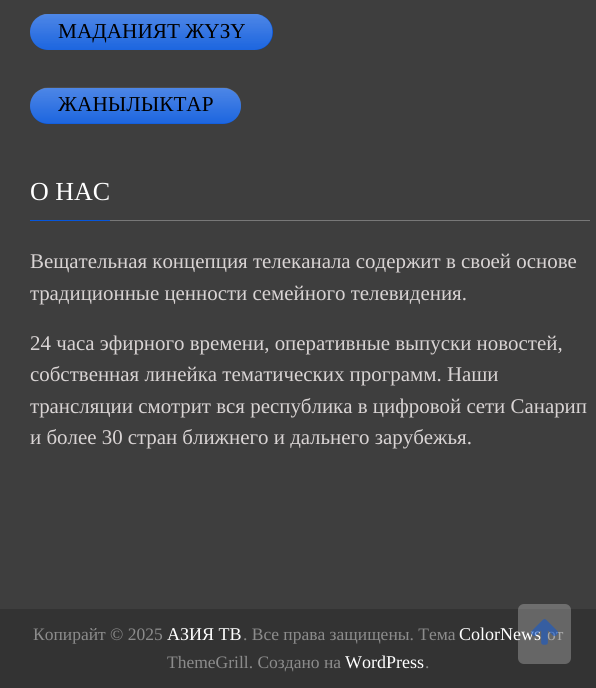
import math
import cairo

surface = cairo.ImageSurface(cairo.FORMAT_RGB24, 596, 688)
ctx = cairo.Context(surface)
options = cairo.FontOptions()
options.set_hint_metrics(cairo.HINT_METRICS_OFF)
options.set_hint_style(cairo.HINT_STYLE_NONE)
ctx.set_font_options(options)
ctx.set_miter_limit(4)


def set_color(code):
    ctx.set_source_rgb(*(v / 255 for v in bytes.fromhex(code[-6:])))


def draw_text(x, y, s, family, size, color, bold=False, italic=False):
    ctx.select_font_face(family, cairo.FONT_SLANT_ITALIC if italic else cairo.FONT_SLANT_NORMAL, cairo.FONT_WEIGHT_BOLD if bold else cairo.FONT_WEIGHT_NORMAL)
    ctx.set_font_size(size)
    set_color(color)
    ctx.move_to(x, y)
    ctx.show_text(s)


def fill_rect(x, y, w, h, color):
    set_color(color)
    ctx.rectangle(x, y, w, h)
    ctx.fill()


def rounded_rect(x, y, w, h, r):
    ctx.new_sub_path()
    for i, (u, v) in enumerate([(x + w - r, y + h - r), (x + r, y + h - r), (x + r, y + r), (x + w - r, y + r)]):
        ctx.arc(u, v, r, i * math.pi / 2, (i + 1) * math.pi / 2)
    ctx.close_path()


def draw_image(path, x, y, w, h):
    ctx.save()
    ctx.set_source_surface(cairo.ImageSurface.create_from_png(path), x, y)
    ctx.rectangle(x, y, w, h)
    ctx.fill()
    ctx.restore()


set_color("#3e3e3e")
ctx.paint()
set_color("#0656dc")
rounded_rect(30, 14, 243, 36, 18)
ctx.fill()
draw_image("assets/img1.png", 30, 14, 243, 36)
draw_text(58, 38, "МАДАНИЯТ ЖҮЗҮ", "Liberation Serif", 21.25, "#000000")
set_color("#0656dc")
rounded_rect(30, 88, 211, 36, 18)
ctx.fill()
draw_image("assets/img2.png", 30, 87, 211, 37)
draw_text(58, 111, "ЖАНЫЛЫКТАР", "Liberation Serif", 21.25, "#000000")
fill_rect(110, 220, 480, 1, "#787878")
fill_rect(30, 220, 80, 1, "#0656dc")
draw_text(30, 200, "О НАС", "Liberation Serif", 26, "#ffffff")
draw_text(30, 268, "Вещательная концепция телеканала содержит в своей основе", "Liberation Serif", 20.9, "#d9d4d4")
draw_text(30, 300, "традиционные ценности семейного телевидения.", "Liberation Serif", 20.9, "#d9d4d4")
draw_text(30, 350, "24 часа эфирного времени, оперативные выпуски новостей,", "Liberation Serif", 20.9, "#d9d4d4")
draw_text(30, 381, "собственная линейка тематических программ. Наши", "Liberation Serif", 20.9, "#d9d4d4")
draw_text(30, 413, "трансляции смотрит вся республика в цифровой сети Санарип", "Liberation Serif", 20.9, "#d9d4d4")
draw_text(30, 444, "и более 30 стран ближнего и дальнего зарубежья.", "Liberation Serif", 20.9, "#d9d4d4")
fill_rect(0, 609, 596, 79, "#333333")
draw_text(33, 640, "Копирайт © 2025", "Liberation Serif", 17.5, "#8c8c8c")
draw_text(167, 640, "АЗИЯ ТВ", "Liberation Serif", 18, "#ffffff")
draw_text(243, 640, ". Все права защищены. Тема", "Liberation Serif", 17.5, "#8c8c8c")
draw_text(459, 640, "ColorNews", "Liberation Serif", 18, "#ffffff")
draw_text(547, 640, "от", "Liberation Serif", 17.5, "#8c8c8c")
draw_text(167, 668, "ThemeGrill. Создано на", "Liberation Serif", 17.5, "#8c8c8c")
draw_text(345, 668, "WordPress", "Liberation Serif", 18, "#ffffff")
draw_text(425, 668, ".", "Liberation Serif", 17.5, "#8c8c8c")
ctx.set_source_rgba(1, 1, 1, 0.25)
rounded_rect(518, 604, 53, 60, 6)
ctx.fill()
draw_image("assets/img3.png", 531, 619, 27, 26)
surface.write_to_png("output.png")
